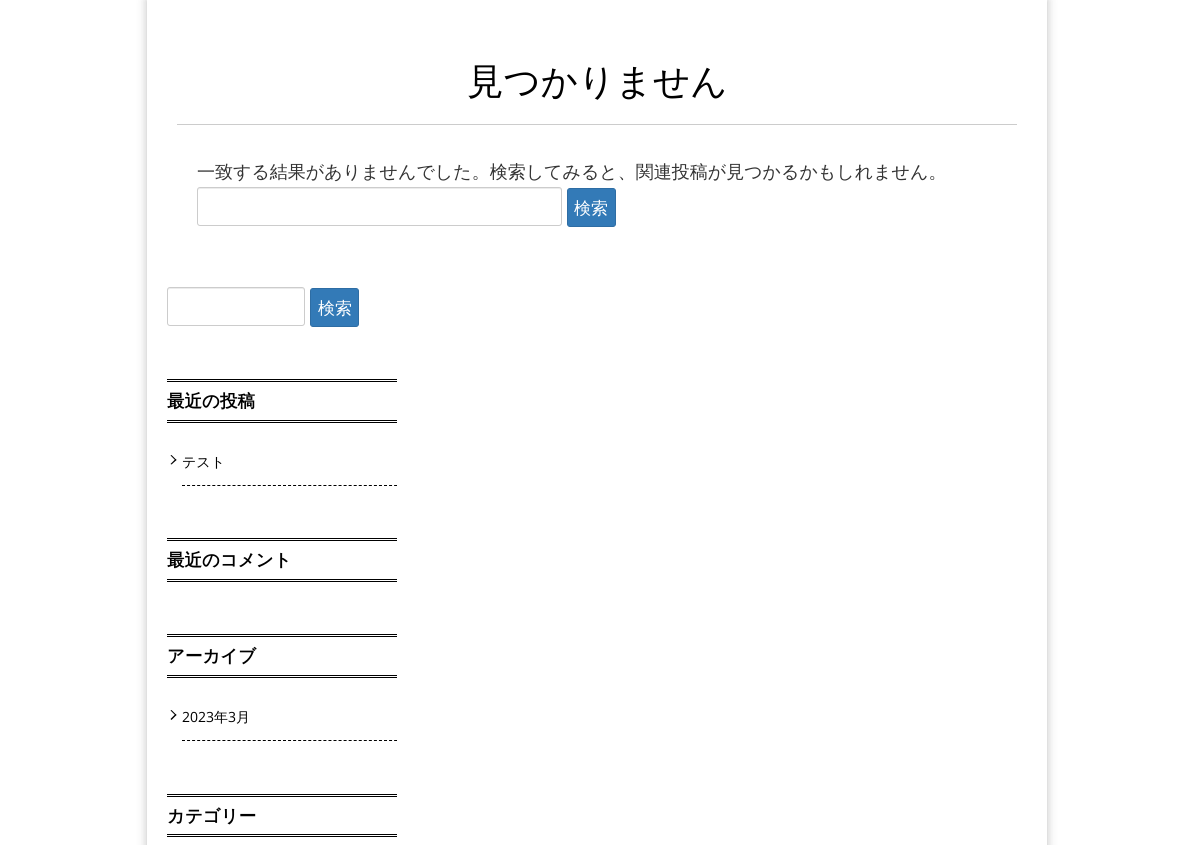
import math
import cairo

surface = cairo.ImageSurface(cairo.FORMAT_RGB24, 1194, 845)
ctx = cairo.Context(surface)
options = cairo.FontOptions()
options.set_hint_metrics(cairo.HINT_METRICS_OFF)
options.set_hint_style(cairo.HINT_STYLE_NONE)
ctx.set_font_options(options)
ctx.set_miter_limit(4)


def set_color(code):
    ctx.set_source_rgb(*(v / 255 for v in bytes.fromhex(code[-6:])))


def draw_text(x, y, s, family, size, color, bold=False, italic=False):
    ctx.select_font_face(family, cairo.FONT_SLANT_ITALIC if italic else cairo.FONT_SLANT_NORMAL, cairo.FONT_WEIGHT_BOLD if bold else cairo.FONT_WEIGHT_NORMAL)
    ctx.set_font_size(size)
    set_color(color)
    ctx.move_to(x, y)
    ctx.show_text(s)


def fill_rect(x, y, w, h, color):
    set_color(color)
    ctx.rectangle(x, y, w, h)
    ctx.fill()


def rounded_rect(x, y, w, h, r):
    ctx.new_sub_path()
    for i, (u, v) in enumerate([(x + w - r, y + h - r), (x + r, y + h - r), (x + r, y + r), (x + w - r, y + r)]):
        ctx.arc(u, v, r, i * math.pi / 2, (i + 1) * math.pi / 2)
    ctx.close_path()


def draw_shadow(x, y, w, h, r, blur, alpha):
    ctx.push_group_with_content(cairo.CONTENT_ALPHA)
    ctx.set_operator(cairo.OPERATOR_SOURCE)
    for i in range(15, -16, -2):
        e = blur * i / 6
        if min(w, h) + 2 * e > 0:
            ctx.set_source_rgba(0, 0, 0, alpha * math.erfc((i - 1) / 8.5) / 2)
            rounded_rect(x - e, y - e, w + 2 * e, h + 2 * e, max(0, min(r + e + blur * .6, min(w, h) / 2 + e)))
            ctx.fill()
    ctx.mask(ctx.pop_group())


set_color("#ffffff")
ctx.paint()
ctx.save()
ctx.set_fill_rule(cairo.FILL_RULE_EVEN_ODD)
ctx.new_path()
ctx.move_to(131, 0)
ctx.line_to(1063, 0)
ctx.line_to(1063, 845)
ctx.line_to(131, 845)
ctx.close_path()
ctx.move_to(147, 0)
ctx.line_to(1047, 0)
ctx.line_to(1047, 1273)
ctx.line_to(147, 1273)
ctx.close_path()
ctx.clip()
set_color("#000000")
draw_shadow(147, 0, 900, 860, 0, 5, 0.25)
ctx.restore()
fill_rect(177, 124, 840, 1, "#cccccc")
draw_text(467, 94, "見つかりません", "WenQuanYi Zen Hei Medium", 36.5, "#000000")
draw_text(197, 178, "一致する結果がありませんでした。検索してみると、関連投稿が見つかるかもしれません。", "WenQuanYi Zen Hei Medium", 18, "#333333")
set_color("#ececec")
ctx.new_path()
ctx.move_to(200, 189)
ctx.line_to(559, 189)
ctx.curve_to(560, 189, 561, 190, 561, 191)
ctx.curve_to(561, 190, 561, 188, 559, 188)
ctx.line_to(200, 188)
ctx.curve_to(198, 188, 198, 190, 198, 191)
ctx.curve_to(198, 190, 199, 189, 200, 189)
ctx.close_path()
ctx.fill()
rounded_rect(197.5, 187.5, 364, 38, 2.5)
set_color("#cccccc")
ctx.set_line_width(1)
ctx.stroke()
set_color("#337ab7")
rounded_rect(567.5, 188.5, 48, 38, 2.5)
ctx.fill_preserve()
set_color("#2e6da4")
ctx.stroke()
draw_text(574, 214, "検索", "WenQuanYi Zen Hei Medium", 17, "#ffffff")
set_color("#ececec")
ctx.new_path()
ctx.move_to(170, 289)
ctx.line_to(302, 289)
ctx.curve_to(303, 289, 304, 290, 304, 291)
ctx.curve_to(304, 290, 304, 288, 302, 288)
ctx.line_to(170, 288)
ctx.curve_to(168, 288, 168, 290, 168, 291)
ctx.curve_to(168, 290, 169, 289, 170, 289)
ctx.close_path()
ctx.fill()
rounded_rect(167.5, 287.5, 137, 38, 2.5)
set_color("#cccccc")
ctx.stroke()
set_color("#337ab7")
rounded_rect(310.5, 288.5, 48, 38, 2.5)
ctx.fill_preserve()
set_color("#2e6da4")
ctx.stroke()
draw_text(318, 314, "検索", "WenQuanYi Zen Hei Medium", 17, "#ffffff")
fill_rect(167, 379, 230, 1, "#000000")
fill_rect(167, 381, 230, 1, "#000000")
fill_rect(167, 420, 230, 1, "#000000")
fill_rect(167, 422, 230, 1, "#000000")
draw_text(167, 407, "最近の投稿", "WenQuanYi Zen Hei", 17.5, "#000000", bold=True)
ctx.new_path()
ctx.move_to(182, 485.5)
ctx.line_to(397, 485.5)
ctx.set_dash([3, 2.05])
ctx.stroke()
ctx.new_path()
ctx.move_to(170.5, 455.5)
ctx.line_to(171.5, 455)
ctx.line_to(176.5, 460)
ctx.line_to(175.5, 460.5)
ctx.close_path()
ctx.fill()
ctx.new_path()
ctx.move_to(170.5, 464)
ctx.line_to(175.5, 459)
ctx.line_to(176.5, 460)
ctx.line_to(171.5, 464.5)
ctx.close_path()
ctx.fill()
draw_text(182, 467, "テスト", "WenQuanYi Zen Hei Medium", 14, "#000000")
fill_rect(167, 538, 230, 1, "#000000")
fill_rect(167, 540, 230, 1, "#000000")
fill_rect(167, 579, 230, 1, "#000000")
fill_rect(167, 581, 230, 1, "#000000")
draw_text(167, 566, "最近のコメント", "WenQuanYi Zen Hei", 17.5, "#000000", bold=True)
fill_rect(167, 634, 230, 1, "#000000")
fill_rect(167, 636, 230, 1, "#000000")
fill_rect(167, 675, 230, 1, "#000000")
fill_rect(167, 677, 230, 1, "#000000")
draw_text(167, 662, "アーカイブ", "WenQuanYi Zen Hei", 17.5, "#000000", bold=True)
ctx.new_path()
ctx.move_to(182, 740.5)
ctx.line_to(397, 740.5)
ctx.stroke()
ctx.new_path()
ctx.move_to(170.5, 710.5)
ctx.line_to(171.5, 710)
ctx.line_to(176.5, 715)
ctx.line_to(175.5, 715.5)
ctx.close_path()
ctx.fill()
ctx.new_path()
ctx.move_to(170.5, 719)
ctx.line_to(175.5, 714)
ctx.line_to(176.5, 715)
ctx.line_to(171.5, 720)
ctx.close_path()
ctx.fill()
draw_text(182, 722, "2023", "Open Sans", 14, "#000000")
draw_text(214, 722, "年", "WenQuanYi Zen Hei Medium", 14, "#000000")
draw_text(228, 722, "3", "Open Sans", 14, "#000000")
draw_text(236, 722, "月", "WenQuanYi Zen Hei Medium", 14, "#000000")
fill_rect(167, 794, 230, 1, "#000000")
fill_rect(167, 796, 230, 1, "#000000")
fill_rect(167, 834, 230, 1, "#000000")
fill_rect(167, 836, 230, 1, "#000000")
draw_text(167, 822, "カテゴリー", "WenQuanYi Zen Hei", 17.5, "#000000", bold=True)
surface.write_to_png("output.png")
